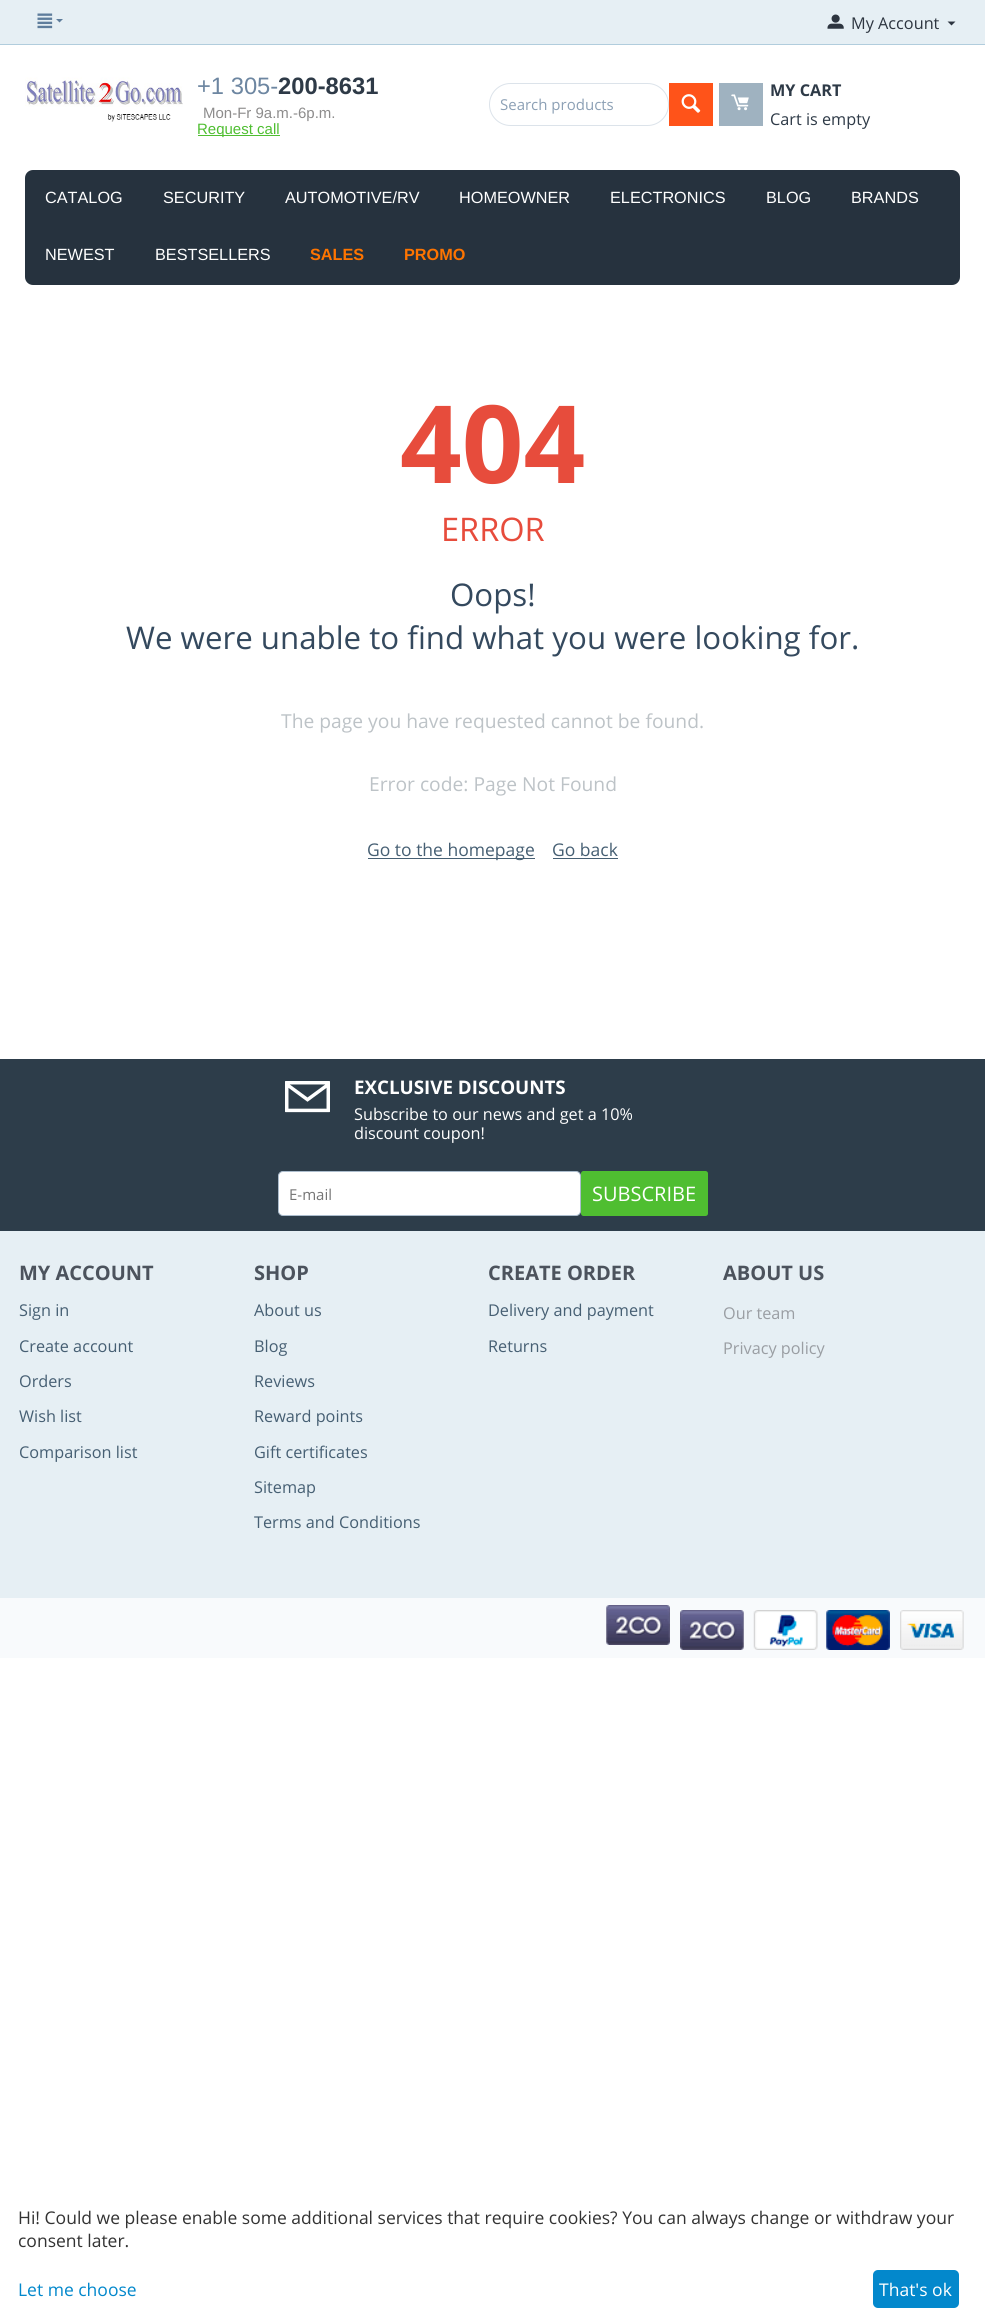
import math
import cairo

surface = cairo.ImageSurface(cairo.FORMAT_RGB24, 985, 2324)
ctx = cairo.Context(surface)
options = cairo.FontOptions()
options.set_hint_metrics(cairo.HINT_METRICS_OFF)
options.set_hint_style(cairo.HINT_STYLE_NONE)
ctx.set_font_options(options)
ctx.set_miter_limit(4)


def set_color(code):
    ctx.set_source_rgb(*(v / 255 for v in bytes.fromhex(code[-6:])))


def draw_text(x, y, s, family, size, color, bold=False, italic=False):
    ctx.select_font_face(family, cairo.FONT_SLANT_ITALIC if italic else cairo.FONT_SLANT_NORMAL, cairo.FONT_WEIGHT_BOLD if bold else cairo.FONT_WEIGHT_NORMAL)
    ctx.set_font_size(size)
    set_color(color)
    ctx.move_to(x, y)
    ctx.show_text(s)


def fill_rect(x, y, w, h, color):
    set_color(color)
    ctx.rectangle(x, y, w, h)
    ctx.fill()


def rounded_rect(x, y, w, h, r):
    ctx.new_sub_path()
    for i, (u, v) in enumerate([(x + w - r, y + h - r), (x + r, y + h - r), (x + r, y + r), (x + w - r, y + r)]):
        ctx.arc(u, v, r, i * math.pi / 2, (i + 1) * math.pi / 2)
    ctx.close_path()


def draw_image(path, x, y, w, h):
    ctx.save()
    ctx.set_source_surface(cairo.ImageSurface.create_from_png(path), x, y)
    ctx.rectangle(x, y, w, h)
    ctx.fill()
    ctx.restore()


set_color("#ffffff")
ctx.paint()
fill_rect(0, 0, 985, 44, "#e6eff4")
fill_rect(0, 44, 985, 1, "#b1cddd")
draw_image("assets/img1.png", 37, 13, 16, 16)
set_color("#5e7d9c")
ctx.new_path()
ctx.move_to(59.5, 22.5)
ctx.line_to(56, 19)
ctx.line_to(63, 19)
ctx.close_path()
ctx.fill()
draw_image("assets/img2.png", 827, 14, 17, 15)
draw_text(851, 29, "My Account", "Open Sans", 16.25, "#2d3540")
ctx.new_path()
ctx.move_to(951.5, 25.5)
ctx.line_to(947.5, 21.5)
ctx.line_to(955.5, 21.5)
ctx.close_path()
ctx.fill()
draw_image("assets/img3.png", 25, 77, 158, 45)
draw_text(197, 94, "+1 305-", "Liberation Sans", 23.75, "#6d86a1")
draw_text(278, 94, "200-8631", "Liberation Sans", 23.75, "#2e3a47", bold=True)
draw_text(203, 118, "Mon-Fr 9a.m.-6p.m.", "Liberation Sans", 15, "#8d8c8c")
fill_rect(198, 135, 82, 1, "#4fbe31")
draw_text(197, 134, "Request call", "Liberation Sans", 15, "#4fbe31")
rounded_rect(489.5, 83.5, 179, 42, 21)
set_color("#dce3ea")
ctx.set_line_width(1)
ctx.stroke()
draw_text(500, 110, "Search products", "Open Sans", 15, "#8ca0b5")
fill_rect(669, 83, 44, 43, "#ff5319")
draw_image("assets/img4.png", 681, 94, 20, 19)
fill_rect(719, 83, 44, 43, "#9fb2c0")
draw_image("assets/img5.png", 731, 94, 18, 17)
draw_text(770, 96, "MY CART", "Open Sans", 16.25, "#2e3a47", bold=True)
draw_text(770, 125, "Cart is empty", "Open Sans", 16.25, "#2e3a47")
set_color("#26323e")
rounded_rect(25, 170, 935, 115, 8)
ctx.fill()
draw_text(45, 203, "CATALOG", "Liberation Sans", 16.25, "#ffffff")
draw_text(163, 203, "SECURITY", "Liberation Sans", 16.25, "#ffffff")
draw_text(285, 203, "AUTOMOTIVE/RV", "Liberation Sans", 16.25, "#ffffff")
draw_text(459, 203, "HOMEOWNER", "Liberation Sans", 16.25, "#ffffff")
draw_text(610, 203, "ELECTRONICS", "Liberation Sans", 16.25, "#ffffff")
draw_text(766, 203, "BLOG", "Liberation Sans", 16.25, "#ffffff")
draw_text(851, 203, "BRANDS", "Liberation Sans", 16.25, "#ffffff")
draw_text(45, 260, "NEWEST", "Liberation Sans", 16.25, "#ffffff")
draw_text(155, 260, "BESTSELLERS", "Liberation Sans", 16.25, "#ffffff")
draw_text(310, 260, "SALES", "Liberation Sans", 16.25, "#fe7400", bold=True)
draw_text(404, 260, "PROMO", "Liberation Sans", 16.25, "#fe7400", bold=True)
draw_text(400, 483, "404", "Open Sans", 108, "#e74c3c", bold=True)
draw_text(441, 541, "ERROR", "Open Sans", 32.5, "#e74c3c")
draw_text(450, 606, "Oops!", "Open Sans", 31.25, "#34495e")
draw_text(126, 649, "We were unable to find what you were looking for.", "Open Sans", 31.25, "#34495e")
draw_text(281, 728, "The page you have requested cannot be found.", "Open Sans", 19.25, "#bdc3c7")
draw_text(369, 791, "Error code: Page Not Found", "Open Sans", 19.25, "#bdc3c7")
fill_rect(368, 858, 167, 1, "#465f73")
draw_text(367, 856, "Go to the homepage", "Open Sans", 17.5, "#465f73")
draw_text(552, 856, "Go back", "Open Sans", 17.5, "#465f73")
fill_rect(553, 858, 65, 1, "#465f73")
fill_rect(0, 1231, 985, 367, "#e6eff4")
fill_rect(0, 1059, 985, 172, "#2d3d4a")
draw_image("assets/img6.png", 285, 1081, 45, 32)
draw_text(354, 1094, "EXCLUSIVE DISCOUNTS", "Open Sans", 18.75, "#ffffff", bold=True)
draw_text(354, 1120, "Subscribe to our news and get a 10%", "Open Sans", 16.25, "#ffffff")
draw_text(354, 1139, "discount coupon!", "Open Sans", 16.25, "#ffffff")
rounded_rect(278.5, 1171.5, 302, 44, 4.5)
ctx.fill_preserve()
set_color("#acbdcd")
ctx.stroke()
draw_text(289, 1200, "E-mail", "Open Sans", 15, "#757575")
set_color("#4fbe31")
rounded_rect(581, 1171, 127, 45, 2.5)
ctx.fill()
draw_text(592, 1201, "SUBSCRIBE", "Open Sans", 20, "#ffffff")
draw_text(19, 1280, "MY ACCOUNT", "Open Sans", 20, "#4c535d", bold=True)
draw_text(19, 1316, "Sign in", "Open Sans", 16.25, "#465f73")
draw_text(19, 1352, "Create account", "Open Sans", 16.25, "#465f73")
draw_text(19, 1387, "Orders", "Open Sans", 16.25, "#465f73")
draw_text(19, 1422, "Wish list", "Open Sans", 16.25, "#465f73")
draw_text(19, 1458, "Comparison list", "Open Sans", 16.25, "#465f73")
draw_text(254, 1280, "SHOP", "Open Sans", 20, "#4c535d", bold=True)
draw_text(254, 1316, "About us", "Open Sans", 16.25, "#465f73")
draw_text(254, 1352, "Blog", "Open Sans", 16.25, "#465f73")
draw_text(254, 1387, "Reviews", "Open Sans", 16.25, "#465f73")
draw_text(254, 1422, "Reward points", "Open Sans", 16.25, "#465f73")
draw_text(254, 1458, "Gift certificates", "Open Sans", 16.25, "#465f73")
draw_text(254, 1493, "Sitemap", "Open Sans", 16.25, "#465f73")
draw_text(254, 1528, "Terms and Conditions", "Open Sans", 16.25, "#465f73")
draw_text(488, 1280, "CREATE ORDER", "Open Sans", 20, "#4c535d", bold=True)
draw_text(488, 1316, "Delivery and payment", "Open Sans", 16.25, "#465f73")
draw_text(488, 1352, "Returns", "Open Sans", 16.25, "#465f73")
draw_text(723, 1280, "ABOUT US", "Open Sans", 20, "#4c535d", bold=True)
draw_text(723, 1319, "Our team", "Open Sans", 16.25, "#9a9ea3")
draw_text(723, 1354, "Privacy policy", "Open Sans", 16.25, "#9a9ea3")
fill_rect(0, 1598, 985, 60, "#f8fafc")
draw_image("assets/img7.png", 606, 1605, 64, 40)
draw_image("assets/img8.png", 680, 1610, 64, 40)
draw_image("assets/img9.png", 753, 1610, 65, 40)
draw_image("assets/img10.png", 826, 1610, 64, 40)
draw_image("assets/img11.png", 900, 1610, 64, 40)
draw_text(18, 2224, "Hi! Could we please enable some additional services that require cookies? You can always change or withdraw your", "Open Sans", 17.5, "#333333")
draw_text(18, 2247, "consent later.", "Open Sans", 17.5, "#333333")
draw_text(18, 2296, "Let me choose", "Open Sans", 17.5, "#0388cc")
rounded_rect(873, 2270, 86, 38, 5)
ctx.fill()
draw_text(879, 2296, "That's ok", "Open Sans", 17.5, "#ffffff")
surface.write_to_png("output.png")
